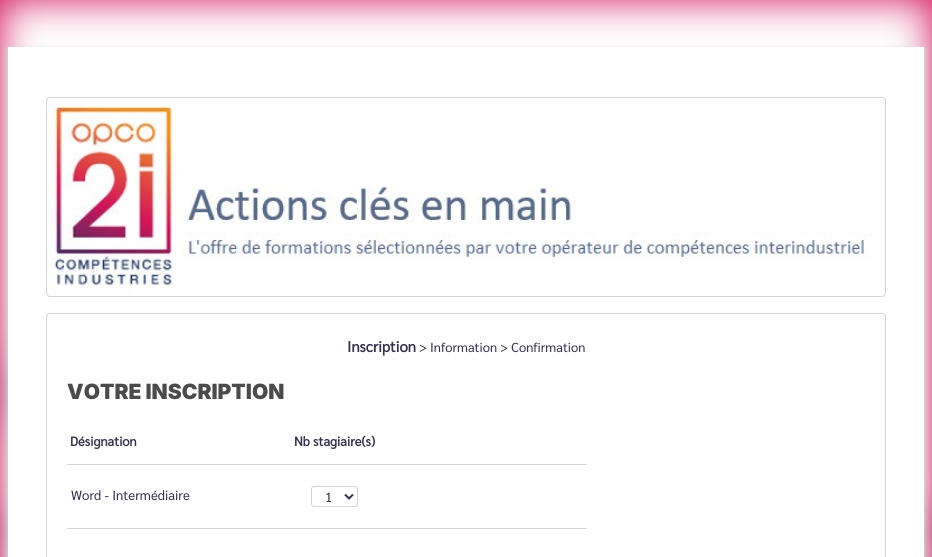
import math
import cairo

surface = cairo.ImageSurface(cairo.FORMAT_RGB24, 932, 557)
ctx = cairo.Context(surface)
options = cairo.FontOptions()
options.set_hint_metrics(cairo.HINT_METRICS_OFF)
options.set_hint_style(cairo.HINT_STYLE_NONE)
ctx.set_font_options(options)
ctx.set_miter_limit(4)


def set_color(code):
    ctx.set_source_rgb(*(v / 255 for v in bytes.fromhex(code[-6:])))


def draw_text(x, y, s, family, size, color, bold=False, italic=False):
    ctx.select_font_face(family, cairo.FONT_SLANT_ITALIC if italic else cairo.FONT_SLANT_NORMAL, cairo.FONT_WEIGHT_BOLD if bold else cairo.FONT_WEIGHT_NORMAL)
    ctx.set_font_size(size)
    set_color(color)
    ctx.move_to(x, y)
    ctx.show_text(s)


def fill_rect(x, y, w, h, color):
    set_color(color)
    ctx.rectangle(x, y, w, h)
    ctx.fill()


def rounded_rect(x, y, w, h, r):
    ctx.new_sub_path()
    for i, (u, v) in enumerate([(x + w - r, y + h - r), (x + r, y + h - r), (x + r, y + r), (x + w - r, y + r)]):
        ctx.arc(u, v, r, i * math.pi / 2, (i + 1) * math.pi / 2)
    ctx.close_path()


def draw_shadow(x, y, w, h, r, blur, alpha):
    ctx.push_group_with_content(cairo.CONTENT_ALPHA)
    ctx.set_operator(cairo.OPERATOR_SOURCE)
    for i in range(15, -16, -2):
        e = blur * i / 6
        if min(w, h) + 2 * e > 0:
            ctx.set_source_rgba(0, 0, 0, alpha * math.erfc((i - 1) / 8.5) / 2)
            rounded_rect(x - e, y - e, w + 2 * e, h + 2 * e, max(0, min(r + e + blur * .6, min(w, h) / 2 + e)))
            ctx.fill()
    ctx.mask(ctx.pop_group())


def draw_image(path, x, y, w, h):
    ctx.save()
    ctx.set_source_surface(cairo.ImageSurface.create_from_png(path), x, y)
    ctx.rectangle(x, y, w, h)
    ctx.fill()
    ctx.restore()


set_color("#d3145b")
ctx.paint()
draw_image("assets/img1.png", 0, 0, 932, 557)
set_color("#d6d6d6")
draw_shadow(7, 49, 918, 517, 0, 3, 1)
fill_rect(8, 47, 916, 510, "#ffffff")
draw_image("assets/img2.png", 47, 104, 825, 191)
rounded_rect(46.5, 97.5, 839, 199, 3.5)
set_color("#d4d4d4")
ctx.set_line_width(1)
ctx.stroke()
rounded_rect(46.5, 313.5, 839, 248, 3.5)
ctx.stroke()
draw_text(347, 352, "Inscription", "Sarabun", 15, "#352f49", bold=True)
draw_text(419, 352, ">", "Sarabun", 13.25, "#352f49")
draw_text(430, 352, "Information > Confirmation", "Sarabun", 13, "#352f49")
draw_text(67, 399, "VOTRE INSCRIPTION", "Inter Black", 21, "#4b4b4b")
draw_text(70, 446, "Désignation", "Sarabun", 13, "#352f49", bold=True)
draw_text(294, 446, "Nb stagiaire(s)", "Sarabun", 13, "#352f49", bold=True)
fill_rect(67, 464, 520, 1, "#d4d4d4")
fill_rect(67, 528, 520, 1, "#d4d4d4")
draw_text(71, 500, "Word - Intermédiaire", "Sarabun", 13.25, "#352f49")
rounded_rect(311.5, 486.5, 46, 20, 2.5)
set_color("#d4d4d4")
ctx.stroke()
ctx.new_path()
ctx.move_to(345, 494.5)
ctx.line_to(349, 498.5)
ctx.line_to(353, 494.5)
set_color("#352f49")
ctx.set_line_width(2)
ctx.stroke()
draw_text(325, 502, "1", "Sarabun", 13.25, "#352f49")
surface.write_to_png("output.png")
